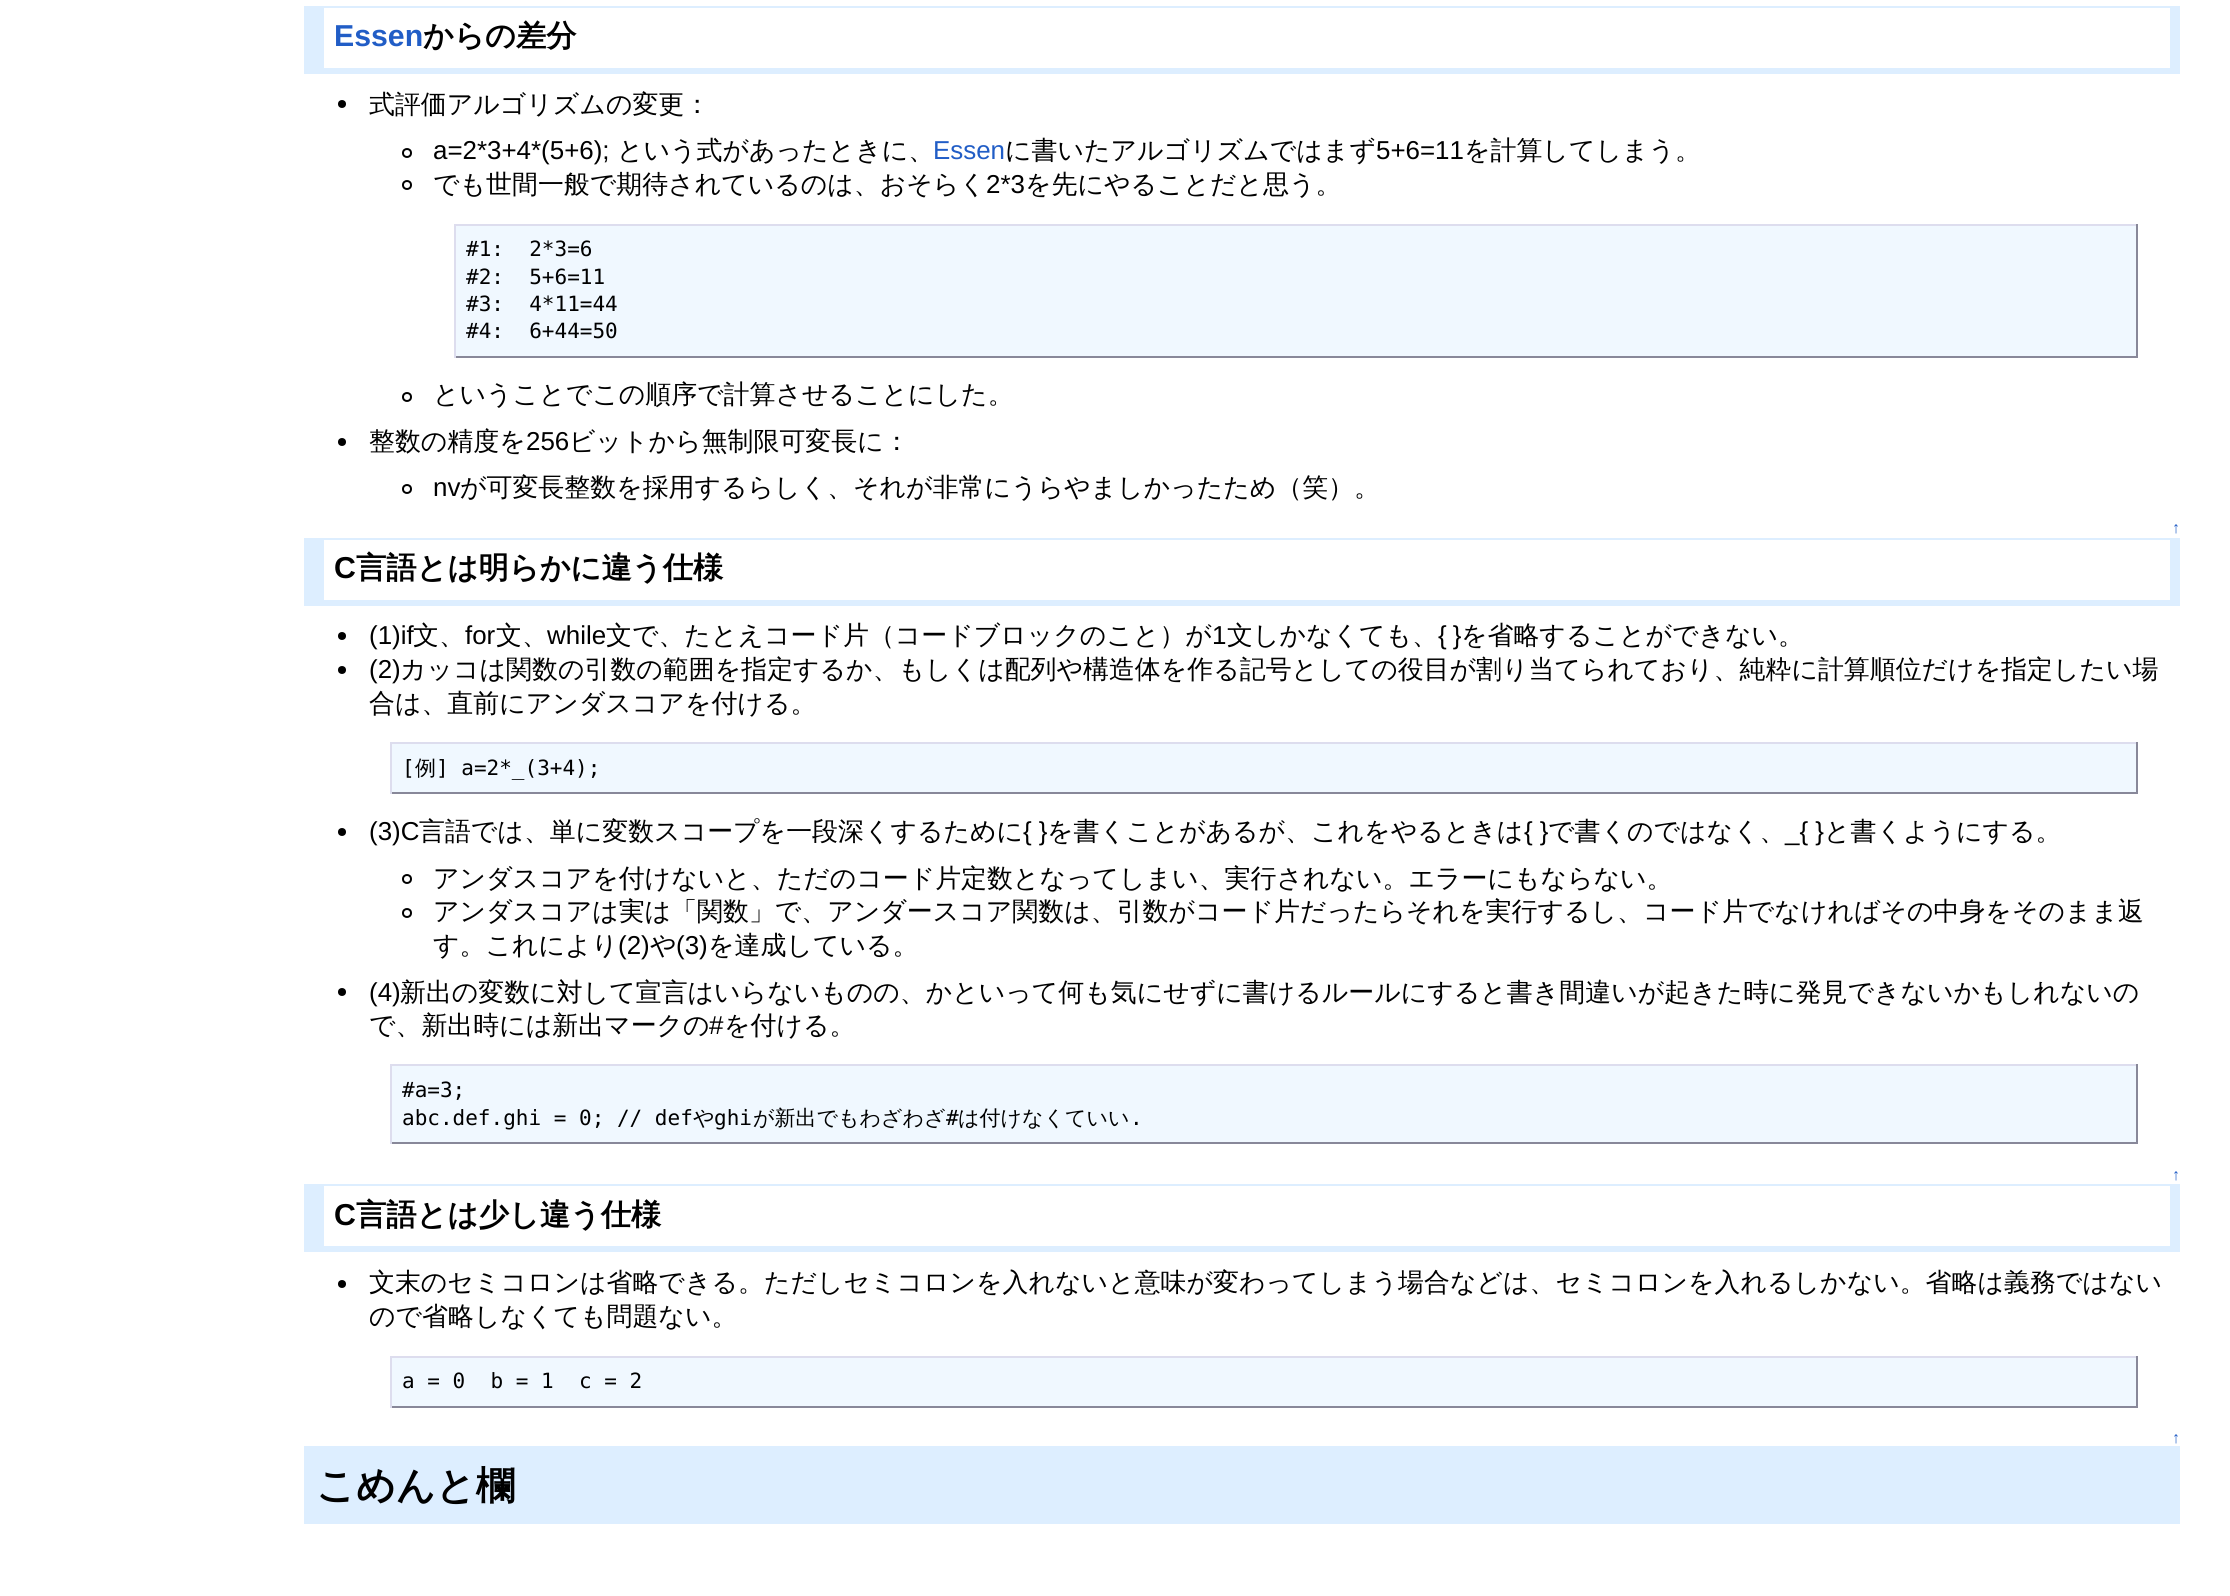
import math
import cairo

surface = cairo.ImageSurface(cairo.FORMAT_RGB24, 2230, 1596)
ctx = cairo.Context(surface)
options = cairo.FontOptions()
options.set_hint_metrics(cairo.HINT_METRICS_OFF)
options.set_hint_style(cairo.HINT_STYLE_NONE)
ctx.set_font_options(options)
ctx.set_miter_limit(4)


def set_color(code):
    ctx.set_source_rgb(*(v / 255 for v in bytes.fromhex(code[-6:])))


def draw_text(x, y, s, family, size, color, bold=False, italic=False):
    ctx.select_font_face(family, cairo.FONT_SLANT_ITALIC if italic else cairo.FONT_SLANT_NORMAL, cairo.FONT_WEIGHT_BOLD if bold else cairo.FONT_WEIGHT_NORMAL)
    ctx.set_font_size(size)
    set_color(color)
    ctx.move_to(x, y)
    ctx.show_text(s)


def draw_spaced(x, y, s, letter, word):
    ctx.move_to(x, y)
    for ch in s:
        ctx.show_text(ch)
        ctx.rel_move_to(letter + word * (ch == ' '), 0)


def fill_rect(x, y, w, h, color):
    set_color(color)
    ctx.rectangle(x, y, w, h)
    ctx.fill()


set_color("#ffffff")
ctx.paint()
fill_rect(324, 6, 1846, 2, "#ddeeff")
fill_rect(2170, 6, 10, 62, "#ddeeff")
fill_rect(324, 68, 1856, 6, "#ddeeff")
fill_rect(304, 6, 20, 68, "#ddeeff")
draw_text(334, 46, "Essen", "Liberation Sans", 30.25, "#215dc6", bold=True)
draw_text(423, 46, "からの差分", "WenQuanYi Zen Hei", 30.25, "#000000", bold=True)
ctx.new_path()
ctx.arc(342, 104, 4, 0, 2 * math.pi)
ctx.fill()
draw_text(369, 113, "式評価アルゴリズムの変更：", "WenQuanYi Zen Hei Medium", 25.92, "#000000")
ctx.new_path()
ctx.arc(407, 153, 4, 0, 2 * math.pi)
ctx.stroke()
draw_text(433, 159, "a=2*3+4*(5+6);", "Liberation Sans", 25.92, "#000000")
draw_text(617, 159, "という式があったときに、", "WenQuanYi Zen Hei Medium", 25.92, "#000000")
draw_text(933, 159, "Essen", "Liberation Sans", 25.92, "#215dc6")
draw_text(1005, 159, "に書いたアルゴリズムではまず", "WenQuanYi Zen Hei Medium", 25.92, "#000000")
draw_text(1376, 159, "5+6=11", "Liberation Sans", 25.92, "#000000")
draw_text(1464, 159, "を計算してしまう。", "WenQuanYi Zen Hei Medium", 25.92, "#000000")
ctx.new_path()
ctx.arc(407, 185, 4, 0, 2 * math.pi)
ctx.stroke()
draw_text(433, 193, "でも世間一般で期待されているのは、おそらく", "WenQuanYi Zen Hei Medium", 25.92, "#000000")
draw_text(986, 193, "2*3", "Liberation Sans", 25.92, "#000000")
draw_text(1025, 193, "を先にやることだと思う。", "WenQuanYi Zen Hei Medium", 25.92, "#000000")
fill_rect(456, 226, 1680, 130, "#f0f8ff")
fill_rect(454, 224, 1684, 2, "#ddddee")
fill_rect(2136, 224, 2, 134, "#888899")
fill_rect(454, 356, 1684, 2, "#888899")
fill_rect(454, 224, 2, 134, "#ddddee")
draw_text(466, 256, "#1:  2*3=6", "DejaVu Sans Mono", 21, "#000000")
draw_text(466, 284, "#2:  5+6=11", "DejaVu Sans Mono", 21, "#000000")
draw_text(466, 311, "#3:  4*11=44", "DejaVu Sans Mono", 21, "#000000")
draw_text(466, 338, "#4:  6+44=50", "DejaVu Sans Mono", 21, "#000000")
ctx.new_path()
ctx.arc(407, 397, 4, 0, 2 * math.pi)
ctx.stroke()
draw_text(433, 403, "ということでこの順序で計算させることにした。", "WenQuanYi Zen Hei Medium", 25.92, "#000000")
ctx.new_path()
ctx.arc(342, 442, 4, 0, 2 * math.pi)
ctx.fill()
draw_text(369, 450, "整数の精度を", "WenQuanYi Zen Hei Medium", 25.92, "#000000")
draw_text(526, 450, "256", "Liberation Sans", 25.92, "#000000")
draw_text(569, 450, "ビットから無制限可変長に：", "WenQuanYi Zen Hei Medium", 25.92, "#000000")
ctx.new_path()
ctx.arc(407, 489, 4, 0, 2 * math.pi)
ctx.stroke()
draw_text(433, 496, "nv", "Liberation Sans", 25.92, "#000000")
draw_text(460, 496, "が可変長整数を採用するらしく、それが非常にうらやましかったため（笑）。", "WenQuanYi Zen Hei Medium", 25.92, "#000000")
draw_text(2172, 533, "↑", "Liberation Sans", 16, "#215dc6")
fill_rect(324, 538, 1846, 2, "#ddeeff")
fill_rect(2170, 538, 10, 62, "#ddeeff")
fill_rect(324, 600, 1856, 6, "#ddeeff")
fill_rect(304, 538, 20, 68, "#ddeeff")
draw_text(334, 578, "C", "Liberation Sans", 30.25, "#000000", bold=True)
draw_text(356, 578, "言語とは明らかに違う仕様", "WenQuanYi Zen Hei", 30.25, "#000000", bold=True)
ctx.new_path()
ctx.arc(342, 636, 4, 0, 2 * math.pi)
ctx.fill()
draw_text(369, 644, "(1)if", "Liberation Sans", 25.92, "#000000")
draw_text(413, 644, "文、", "WenQuanYi Zen Hei Medium", 25.92, "#000000")
draw_text(465, 644, "for", "Liberation Sans", 25.92, "#000000")
draw_text(496, 644, "文、", "WenQuanYi Zen Hei Medium", 25.92, "#000000")
draw_text(547, 644, "while", "Liberation Sans", 25.92, "#000000")
draw_text(606, 644, "文で、たとえコード片（コードブロックのこと）が", "WenQuanYi Zen Hei Medium", 25.92, "#000000")
draw_text(1212, 644, "1", "Liberation Sans", 25.92, "#000000")
draw_text(1227, 644, "文しかなくても、", "WenQuanYi Zen Hei Medium", 25.92, "#000000")
ctx.select_font_face("Liberation Sans")
draw_spaced(1438, 644, "{ }", 0, -1)
draw_text(1461, 644, "を省略することができない。", "WenQuanYi Zen Hei Medium", 25.92, "#000000")
ctx.new_path()
ctx.arc(342, 670, 4, 0, 2 * math.pi)
ctx.fill()
draw_text(369, 678, "(2)", "Liberation Sans", 25.92, "#000000")
draw_text(400, 678, "カッコは関数の引数の範囲を指定するか、もしくは配列や構造体を作る記号としての役目が割り当てられており、純粋に計算順位だけを指定したい場", "WenQuanYi Zen Hei Medium", 25.92, "#000000")
draw_text(369, 712, "合は、直前にアンダスコアを付ける。", "WenQuanYi Zen Hei Medium", 25.92, "#000000")
fill_rect(392, 744, 1744, 48, "#f0f8ff")
fill_rect(390, 742, 1748, 2, "#ddddee")
fill_rect(2136, 742, 2, 52, "#888899")
fill_rect(390, 792, 1748, 2, "#888899")
fill_rect(390, 742, 2, 52, "#ddddee")
draw_text(402, 775, "[", "DejaVu Sans Mono", 21, "#000000")
draw_text(415, 775, "例", "WenQuanYi Zen Hei Medium", 21, "#000000")
draw_text(436, 775, "] a=2*_(3+4);", "DejaVu Sans Mono", 21, "#000000")
ctx.new_path()
ctx.arc(342, 832, 4, 0, 2 * math.pi)
ctx.fill()
draw_text(369, 840, "(3)C", "Liberation Sans", 25.92, "#000000")
draw_text(419, 840, "言語では、単に変数スコープを一段深くするために", "WenQuanYi Zen Hei Medium", 25.92, "#000000")
draw_text(1023, 840, "{ }", "Liberation Sans", 25.92, "#000000")
draw_text(1047, 840, "を書くことがあるが、これをやるときは", "WenQuanYi Zen Hei Medium", 25.92, "#000000")
draw_text(1524, 840, "{ }", "Liberation Sans", 25.92, "#000000")
draw_text(1548, 840, "で書くのではなく、", "WenQuanYi Zen Hei Medium", 25.92, "#000000")
draw_text(1785, 840, "_{ }", "Liberation Sans", 25.92, "#000000")
draw_text(1824, 840, "と書くようにする。", "WenQuanYi Zen Hei Medium", 25.92, "#000000")
ctx.new_path()
ctx.arc(407, 879, 4, 0, 2 * math.pi)
ctx.stroke()
draw_text(433, 887, "アンダスコアを付けないと、ただのコード片定数となってしまい、実行されない。エラーにもならない。", "WenQuanYi Zen Hei Medium", 25.92, "#000000")
ctx.new_path()
ctx.arc(407, 913, 4, 0, 2 * math.pi)
ctx.stroke()
draw_text(433, 920, "アンダスコアは実は「関数」で、アンダースコア関数は、引数がコード片だったらそれを実行するし、コード片でなければその中身をそのまま返", "WenQuanYi Zen Hei Medium", 25.92, "#000000")
draw_text(433, 954, "す。これにより", "WenQuanYi Zen Hei Medium", 25.92, "#000000")
draw_text(618, 954, "(2)", "Liberation Sans", 25.92, "#000000")
draw_text(650, 954, "や", "WenQuanYi Zen Hei Medium", 25.92, "#000000")
draw_text(676, 954, "(3)", "Liberation Sans", 25.92, "#000000")
draw_text(708, 954, "を達成している。", "WenQuanYi Zen Hei Medium", 25.92, "#000000")
ctx.new_path()
ctx.arc(342, 992, 4, 0, 2 * math.pi)
ctx.fill()
draw_text(369, 1001, "(4)", "Liberation Sans", 25.92, "#000000")
draw_text(400, 1001, "新出の変数に対して宣言はいらないものの、かといって何も気にせずに書けるルールにすると書き間違いが起きた時に発見できないかもしれないの", "WenQuanYi Zen Hei Medium", 25.92, "#000000")
draw_text(369, 1034, "で、新出時には新出マークの", "WenQuanYi Zen Hei Medium", 25.92, "#000000")
draw_text(709, 1034, "#", "Liberation Sans", 25.92, "#000000")
draw_text(724, 1034, "を付ける。", "WenQuanYi Zen Hei Medium", 25.92, "#000000")
fill_rect(392, 1066, 1744, 76, "#f0f8ff")
fill_rect(390, 1064, 1748, 2, "#ddddee")
fill_rect(2136, 1064, 2, 80, "#888899")
fill_rect(390, 1142, 1748, 2, "#888899")
fill_rect(390, 1064, 2, 80, "#ddddee")
draw_text(402, 1097, "#a=3;", "DejaVu Sans Mono", 21, "#000000")
draw_text(402, 1125, "abc.def.ghi = 0; // def", "DejaVu Sans Mono", 21, "#000000")
draw_text(693, 1125, "や", "WenQuanYi Zen Hei Medium", 21, "#000000")
draw_text(714, 1125, "ghi", "DejaVu Sans Mono", 21, "#000000")
draw_text(753, 1125, "が新出でもわざわざ", "WenQuanYi Zen Hei Medium", 21, "#000000")
draw_text(946, 1125, "#", "DejaVu Sans Mono", 21, "#000000")
draw_text(958, 1125, "は付けなくていい", "WenQuanYi Zen Hei Medium", 21, "#000000")
draw_text(1130, 1125, ".", "DejaVu Sans Mono", 21, "#000000")
draw_text(2172, 1180, "↑", "Liberation Sans", 16, "#215dc6")
fill_rect(324, 1184, 1846, 2, "#ddeeff")
fill_rect(2170, 1184, 10, 62, "#ddeeff")
fill_rect(324, 1246, 1856, 6, "#ddeeff")
fill_rect(304, 1184, 20, 68, "#ddeeff")
draw_text(334, 1225, "C", "Liberation Sans", 30.25, "#000000", bold=True)
draw_text(356, 1225, "言語とは少し違う仕様", "WenQuanYi Zen Hei", 30.25, "#000000", bold=True)
ctx.new_path()
ctx.arc(342, 1284, 4, 0, 2 * math.pi)
ctx.fill()
draw_text(369, 1291, "文末のセミコロンは省略できる。ただしセミコロンを入れないと意味が変わってしまう場合などは、セミコロンを入れるしかない。省略は義務ではない", "WenQuanYi Zen Hei Medium", 25.92, "#000000")
draw_text(369, 1325, "ので省略しなくても問題ない。", "WenQuanYi Zen Hei Medium", 25.92, "#000000")
fill_rect(392, 1358, 1744, 48, "#f0f8ff")
fill_rect(390, 1356, 1748, 2, "#ddddee")
fill_rect(2136, 1356, 2, 52, "#888899")
fill_rect(390, 1406, 1748, 2, "#888899")
fill_rect(390, 1356, 2, 52, "#ddddee")
draw_text(402, 1388, "a = 0  b = 1  c = 2", "DejaVu Sans Mono", 21, "#000000")
draw_text(2172, 1443, "↑", "Liberation Sans", 16, "#215dc6")
fill_rect(304, 1446, 1876, 78, "#ddeeff")
draw_text(316, 1499, "こめんと欄", "WenQuanYi Zen Hei", 39, "#000000", bold=True)
surface.write_to_png("output.png")
